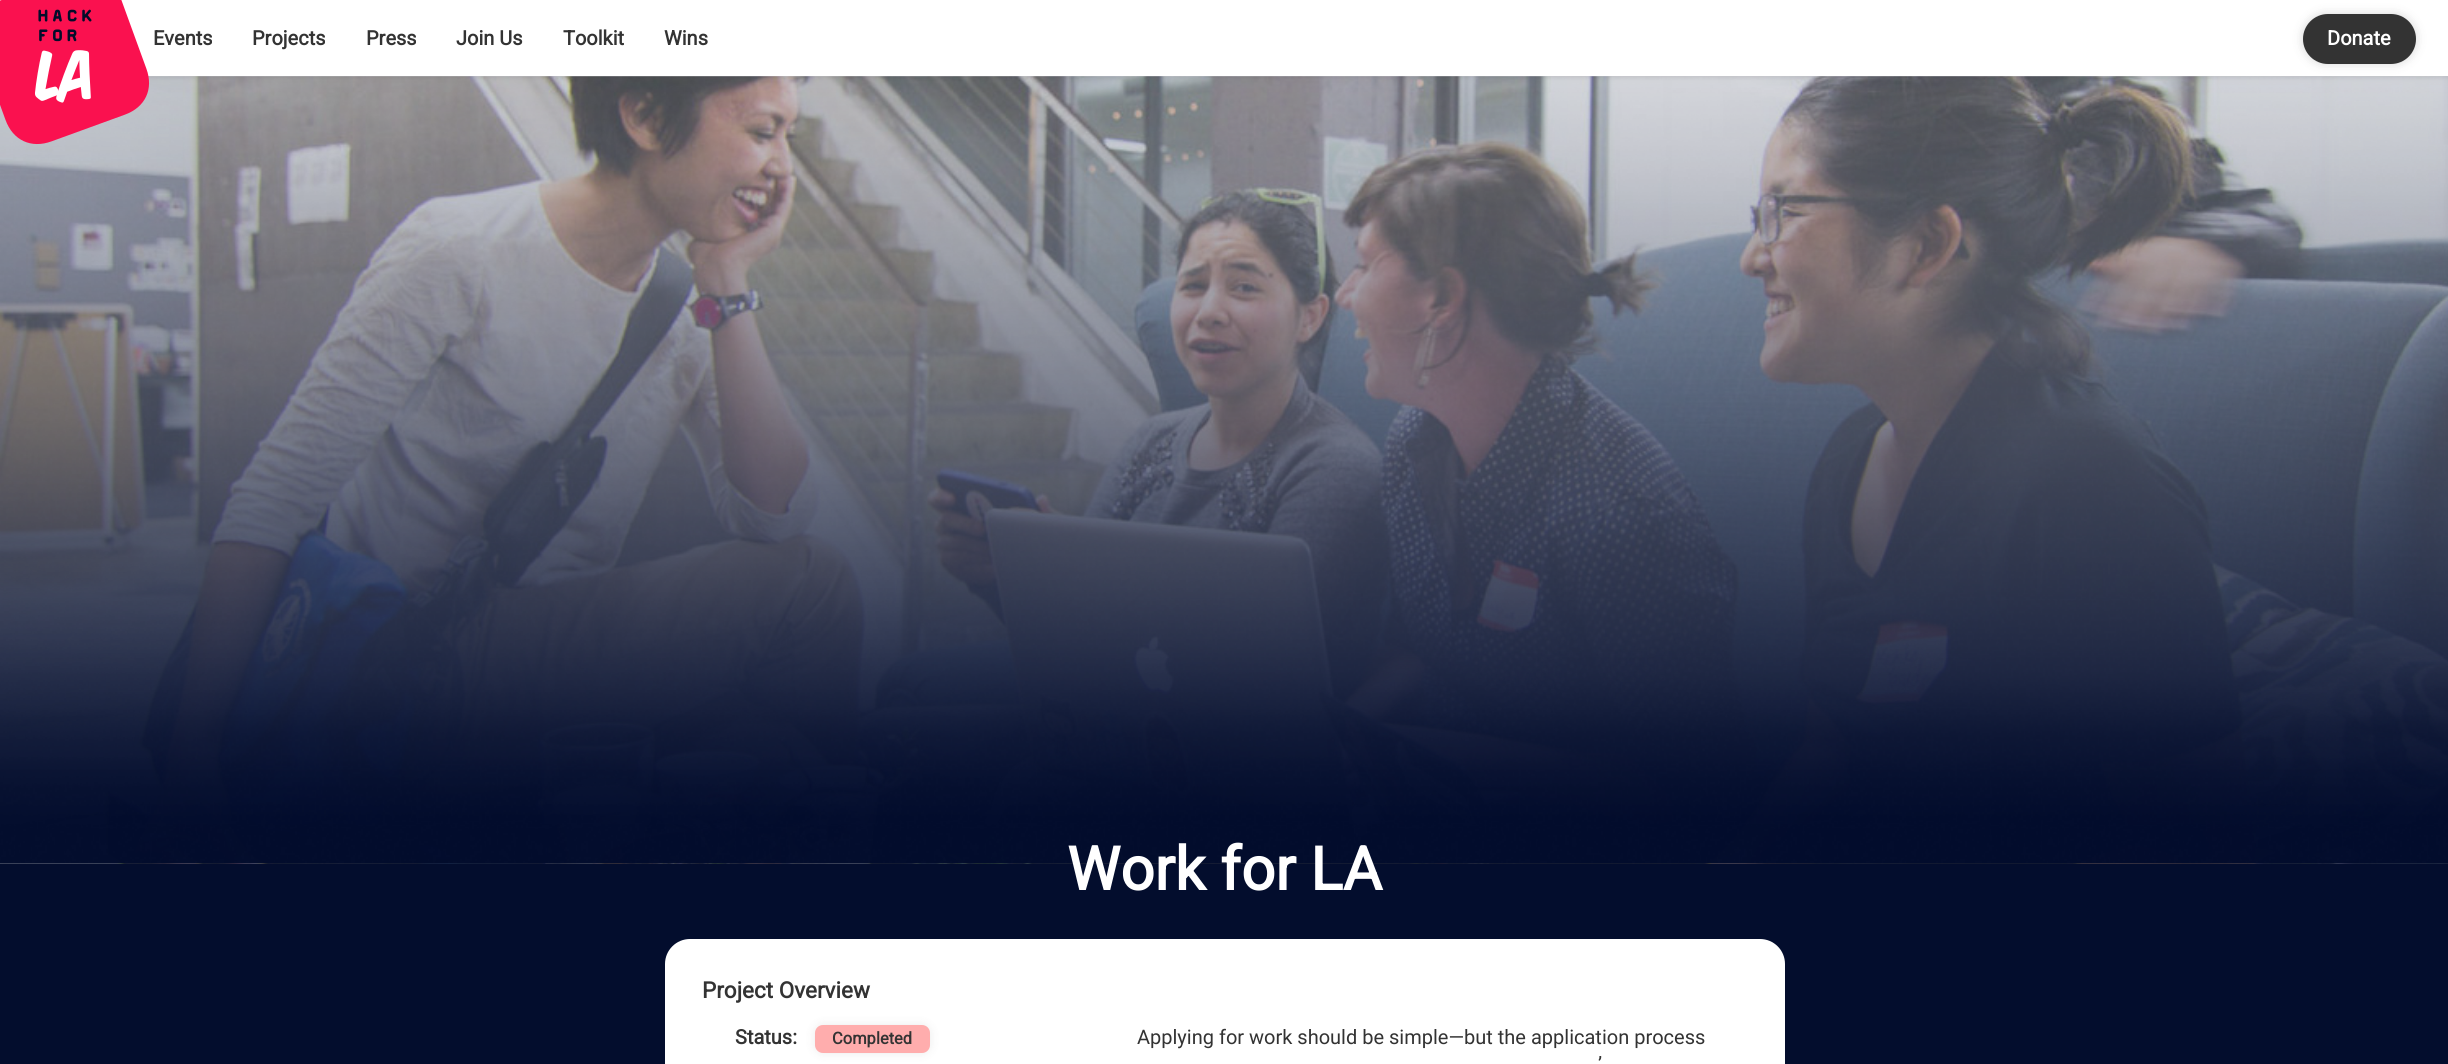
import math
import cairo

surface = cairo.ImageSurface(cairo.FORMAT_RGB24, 2448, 1064)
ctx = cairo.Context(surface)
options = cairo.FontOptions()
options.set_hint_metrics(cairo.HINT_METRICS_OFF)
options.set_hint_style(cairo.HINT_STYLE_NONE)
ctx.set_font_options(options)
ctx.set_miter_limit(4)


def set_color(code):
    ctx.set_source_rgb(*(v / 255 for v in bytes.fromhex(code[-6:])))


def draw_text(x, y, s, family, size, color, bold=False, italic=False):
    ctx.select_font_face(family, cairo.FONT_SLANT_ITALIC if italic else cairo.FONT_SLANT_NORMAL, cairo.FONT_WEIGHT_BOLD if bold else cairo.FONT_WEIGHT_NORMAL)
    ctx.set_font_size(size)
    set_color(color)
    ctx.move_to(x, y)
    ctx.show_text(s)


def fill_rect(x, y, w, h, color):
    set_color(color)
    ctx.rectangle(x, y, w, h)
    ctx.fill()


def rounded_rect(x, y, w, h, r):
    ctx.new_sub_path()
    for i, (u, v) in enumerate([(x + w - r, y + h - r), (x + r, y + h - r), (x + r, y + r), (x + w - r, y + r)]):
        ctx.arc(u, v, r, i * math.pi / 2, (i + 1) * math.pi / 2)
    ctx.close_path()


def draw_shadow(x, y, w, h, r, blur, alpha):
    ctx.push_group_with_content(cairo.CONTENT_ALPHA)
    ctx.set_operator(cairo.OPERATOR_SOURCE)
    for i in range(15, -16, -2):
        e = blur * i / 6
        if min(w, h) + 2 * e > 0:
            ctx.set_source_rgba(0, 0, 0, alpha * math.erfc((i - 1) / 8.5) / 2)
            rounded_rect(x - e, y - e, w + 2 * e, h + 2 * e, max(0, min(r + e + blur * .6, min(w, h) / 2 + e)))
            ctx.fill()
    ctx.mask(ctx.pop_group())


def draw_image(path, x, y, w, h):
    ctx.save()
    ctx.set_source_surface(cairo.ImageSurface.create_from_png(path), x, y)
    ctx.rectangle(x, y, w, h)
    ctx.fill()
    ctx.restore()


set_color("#ffffff")
ctx.paint()
draw_image("assets/img2.png", 0, 76, 2448, 788)
draw_image("assets/img3.png", 0, 76, 2448, 788)
set_color("#333333")
draw_shadow(0, 1, 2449, 77, 0, 2.5, 0.12)
fill_rect(0, 0, 2448, 76, "#ffffff")
draw_image("assets/img1.png", 0, 0, 150, 145)
draw_text(153, 45, "Events", "Roboto", 20, "#333333", bold=True)
draw_text(252, 45, "Projects", "Roboto", 20, "#333333", bold=True)
draw_text(366, 45, "Press", "Roboto", 20, "#333333", bold=True)
draw_text(456, 45, "Join Us", "Roboto", 20, "#333333", bold=True)
draw_text(563, 45, "Toolkit", "Roboto", 20, "#333333", bold=True)
draw_text(664, 45, "Wins", "Roboto", 20, "#333333", bold=True)
set_color("#333333")
draw_shadow(2303, 14, 113, 50, 25, 5, 0.2)
set_color("#333333")
rounded_rect(2303, 14, 113, 50, 25)
ctx.fill()
draw_text(2327, 45, "Donate", "Roboto", 20, "#ffffff", bold=True)
fill_rect(0, 864, 2448, 200, "#030d2d")
draw_text(1067, 890, "Work for LA", "Roboto", 60, "#ffffff", bold=True)
rounded_rect(665, 939, 1120, 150, 25)
ctx.fill()
draw_text(702, 998, "Project Overview", "Roboto", 22.5, "#333333", bold=True)
draw_text(735, 1044, "Status:", "Roboto", 20, "#333333", bold=True)
set_color("#333333")
draw_shadow(815, 1025, 115, 28, 8, 5, 0.1)
set_color("#ffadad")
rounded_rect(815, 1025, 115, 28, 8)
ctx.fill()
draw_text(832, 1044, "Completed", "Roboto", 16.5, "#333333", bold=True)
draw_text(1137, 1044, "Applying for work should be simple—but the application process", "Roboto", 20, "#333333")
draw_text(1598, 1071, "’", "Roboto", 20, "#333333")
surface.write_to_png("output.png")
